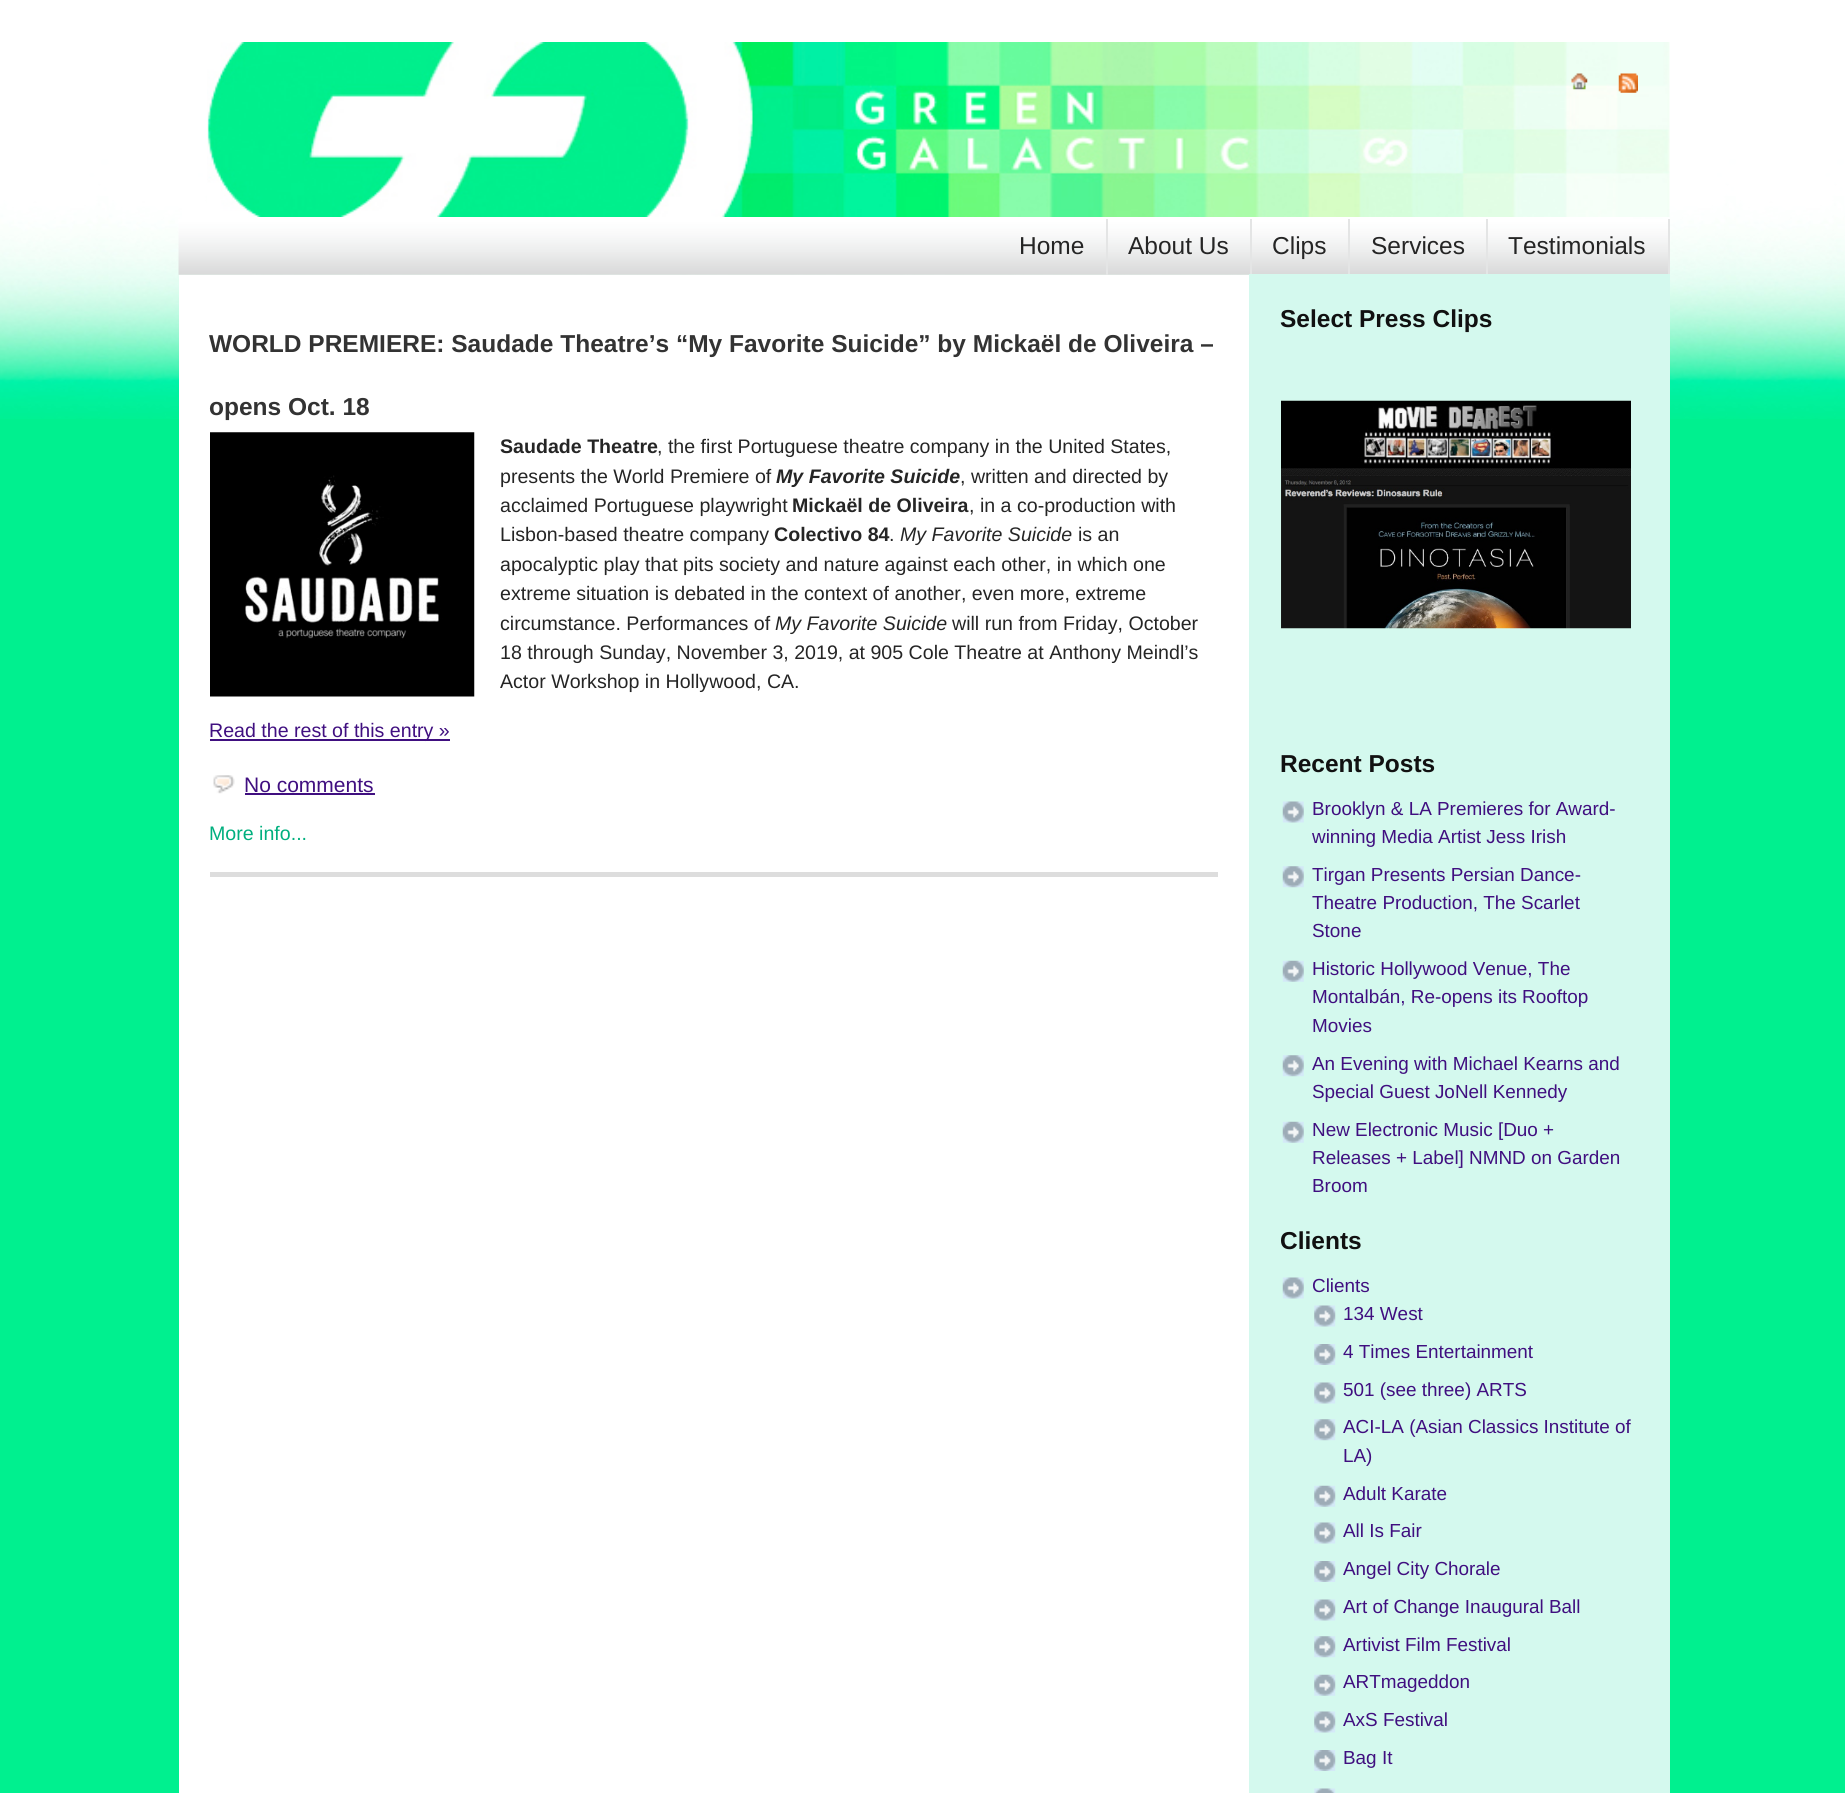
import math
import cairo

surface = cairo.ImageSurface(cairo.FORMAT_RGB24, 1845, 1793)
ctx = cairo.Context(surface)
options = cairo.FontOptions()
options.set_hint_metrics(cairo.HINT_METRICS_OFF)
options.set_hint_style(cairo.HINT_STYLE_NONE)
ctx.set_font_options(options)
ctx.set_miter_limit(4)


def set_color(code):
    ctx.set_source_rgb(*(v / 255 for v in bytes.fromhex(code[-6:])))


def draw_text(x, y, s, family, size, color, bold=False, italic=False):
    ctx.select_font_face(family, cairo.FONT_SLANT_ITALIC if italic else cairo.FONT_SLANT_NORMAL, cairo.FONT_WEIGHT_BOLD if bold else cairo.FONT_WEIGHT_NORMAL)
    ctx.set_font_size(size)
    set_color(color)
    ctx.move_to(x, y)
    ctx.show_text(s)


def fill_rect(x, y, w, h, color):
    set_color(color)
    ctx.rectangle(x, y, w, h)
    ctx.fill()


def draw_image(path, x, y, w, h):
    ctx.save()
    ctx.set_source_surface(cairo.ImageSurface.create_from_png(path), x, y)
    ctx.rectangle(x, y, w, h)
    ctx.fill()
    ctx.restore()


set_color("#00f08f")
ctx.paint()
draw_image("assets/img1.png", 0, 0, 1845, 419)
fill_rect(182, 203, 1451, 16, "#ffffff")
draw_image("assets/img2.png", 207, 42, 1463, 175)
draw_image("assets/img3.png", 1571, 73, 17, 17)
draw_image("assets/img4.png", 1618, 73, 20, 20)
draw_image("assets/img5.png", 178, 219, 1490, 56)
fill_rect(1106, 219, 2, 56, "#e4e5e5")
draw_text(1019, 254, "Home", "Liberation Sans", 24.5, "#252525")
fill_rect(1250, 219, 2, 56, "#e4e5e5")
draw_text(1128, 254, "About Us", "Liberation Sans", 24.5, "#252525")
fill_rect(1348, 219, 2, 56, "#e4e5e5")
draw_text(1272, 254, "Clips", "Liberation Sans", 24.5, "#252525")
fill_rect(1486, 219, 2, 56, "#e4e5e5")
draw_text(1371, 254, "Services", "Liberation Sans", 24.5, "#252525")
fill_rect(1668, 219, 2, 56, "#e4e5e5")
draw_text(1508, 254, "Testimonials", "Liberation Sans", 24.5, "#252525")
fill_rect(179, 275, 1070, 1518, "#ffffff")
fill_rect(1249, 274, 421, 1519, "#d4f9ee")
draw_text(209, 352, "WORLD PREMIERE: Saudade Theatre’s “My Favorite Suicide” by Mickaël de Oliveira –", "Liberation Sans", 24.5, "#333333", bold=True)
draw_text(209, 415, "opens Oct. 18", "Liberation Sans", 24.5, "#333333", bold=True)
draw_image("assets/img6.png", 210, 432, 265, 265)
draw_text(500, 453, "Saudade Theatre", "Liberation Sans", 19.6, "#252525", bold=True)
draw_text(657, 453, ", the first Portuguese theatre company in the United States,", "Liberation Sans", 19.6, "#252525")
draw_text(500, 483, "presents the World Premiere of", "Liberation Sans", 19.6, "#252525")
draw_text(776, 483, "My Favorite Suicide", "Liberation Sans", 19.6, "#252525", bold=True, italic=True)
draw_text(960, 483, ", written and directed by", "Liberation Sans", 19.6, "#252525")
draw_text(500, 512, "acclaimed Portuguese playwright", "Liberation Sans", 19.6, "#252525")
draw_text(792, 512, "Mickaël de Oliveira", "Liberation Sans", 19.6, "#252525", bold=True)
draw_text(969, 512, ", in a co-production with", "Liberation Sans", 19.6, "#252525")
draw_text(500, 541, "Lisbon-based theatre company", "Liberation Sans", 19.6, "#252525")
draw_text(774, 541, "Colectivo 84", "Liberation Sans", 19.6, "#252525", bold=True)
draw_text(889, 541, ".", "Liberation Sans", 19.6, "#252525")
draw_text(900, 541, "My Favorite Suicide", "Liberation Sans", 19.6, "#252525", italic=True)
draw_text(1078, 541, "is an", "Liberation Sans", 19.6, "#252525")
draw_text(500, 571, "apocalyptic play that pits society and nature against each other, in which one", "Liberation Sans", 19.6, "#252525")
draw_text(500, 600, "extreme situation is debated in the context of another, even more, extreme", "Liberation Sans", 19.6, "#252525")
draw_text(500, 630, "circumstance. Performances of", "Liberation Sans", 19.6, "#252525")
draw_text(775, 630, "My Favorite Suicide", "Liberation Sans", 19.6, "#252525", italic=True)
draw_text(952, 630, "will run from Friday, October", "Liberation Sans", 19.6, "#252525")
draw_text(500, 659, "18 through Sunday, November 3, 2019, at 905 Cole Theatre at Anthony Meindl’s", "Liberation Sans", 19.6, "#252525")
draw_text(500, 688, "Actor Workshop in Hollywood, CA.", "Liberation Sans", 19.6, "#252525")
fill_rect(210, 739, 240, 2, "#400f80")
draw_text(209, 737, "Read the rest of this entry »", "Liberation Sans", 19.6, "#400f80")
draw_image("assets/img7.png", 213, 775, 22, 19)
draw_text(244, 792, "No comments", "Liberation Sans", 21, "#400f80")
fill_rect(245, 793, 130, 2, "#400f80")
draw_text(209, 840, "More info...", "Liberation Sans", 19.6, "#00af7e")
fill_rect(210, 872, 1008, 5, "#dddddd")
draw_text(1280, 327, "Select Press Clips", "Liberation Sans", 24.5, "#111111", bold=True)
draw_image("assets/img8.png", 1281, 400, 350, 229)
draw_text(1280, 772, "Recent Posts", "Liberation Sans", 24.5, "#111111", bold=True)
draw_image("assets/img9.png", 1282, 801, 22, 22)
draw_text(1312, 815, "Brooklyn & LA Premieres for Award-", "Liberation Sans", 18.9, "#400f80")
draw_text(1312, 843, "winning Media Artist Jess Irish", "Liberation Sans", 18.9, "#400f80")
draw_image("assets/img10.png", 1282, 866, 22, 22)
draw_text(1312, 881, "Tirgan Presents Persian Dance-", "Liberation Sans", 18.9, "#400f80")
draw_text(1312, 909, "Theatre Production, The Scarlet", "Liberation Sans", 18.9, "#400f80")
draw_text(1312, 937, "Stone", "Liberation Sans", 18.9, "#400f80")
draw_image("assets/img11.png", 1282, 960, 22, 22)
draw_text(1312, 975, "Historic Hollywood Venue, The", "Liberation Sans", 18.9, "#400f80")
draw_text(1312, 1003, "Montalbán, Re-opens its Rooftop", "Liberation Sans", 18.9, "#400f80")
draw_text(1312, 1032, "Movies", "Liberation Sans", 18.9, "#400f80")
draw_image("assets/img10.png", 1282, 1055, 22, 22)
draw_text(1312, 1070, "An Evening with Michael Kearns and", "Liberation Sans", 18.9, "#400f80")
draw_text(1312, 1098, "Special Guest JoNell Kennedy", "Liberation Sans", 18.9, "#400f80")
draw_image("assets/img11.png", 1282, 1121, 22, 22)
draw_text(1312, 1136, "New Electronic Music [Duo +", "Liberation Sans", 18.9, "#400f80")
draw_text(1312, 1164, "Releases + Label] NMND on Garden", "Liberation Sans", 18.9, "#400f80")
draw_text(1312, 1192, "Broom", "Liberation Sans", 18.9, "#400f80")
draw_text(1280, 1249, "Clients", "Liberation Sans", 24.5, "#111111", bold=True)
draw_image("assets/img9.png", 1282, 1277, 22, 22)
draw_text(1312, 1292, "Clients", "Liberation Sans", 18.9, "#400f80")
draw_image("assets/img12.png", 1314, 1305, 22, 22)
draw_text(1343, 1320, "134 West", "Liberation Sans", 18.9, "#400f80")
draw_image("assets/img13.png", 1314, 1344, 22, 21)
draw_text(1343, 1358, "4 Times Entertainment", "Liberation Sans", 18.9, "#400f80")
draw_image("assets/img12.png", 1314, 1382, 22, 22)
draw_text(1343, 1396, "501 (see three) ARTS", "Liberation Sans", 18.9, "#400f80")
draw_image("assets/img14.png", 1314, 1419, 22, 22)
draw_text(1343, 1433, "ACI-LA (Asian Classics Institute of", "Liberation Sans", 18.9, "#400f80")
draw_text(1343, 1462, "LA)", "Liberation Sans", 18.9, "#400f80")
draw_image("assets/img15.png", 1314, 1485, 22, 22)
draw_text(1343, 1500, "Adult Karate", "Liberation Sans", 18.9, "#400f80")
draw_image("assets/img12.png", 1314, 1522, 22, 22)
draw_text(1343, 1537, "All Is Fair", "Liberation Sans", 18.9, "#400f80")
draw_image("assets/img13.png", 1314, 1561, 22, 21)
draw_text(1343, 1575, "Angel City Chorale", "Liberation Sans", 18.9, "#400f80")
draw_image("assets/img12.png", 1314, 1599, 22, 22)
draw_text(1343, 1613, "Art of Change Inaugural Ball", "Liberation Sans", 18.9, "#400f80")
draw_image("assets/img14.png", 1314, 1636, 22, 22)
draw_text(1343, 1651, "Artivist Film Festival", "Liberation Sans", 18.9, "#400f80")
draw_image("assets/img15.png", 1314, 1674, 22, 22)
draw_text(1343, 1688, "ARTmageddon", "Liberation Sans", 18.9, "#400f80")
draw_image("assets/img12.png", 1314, 1711, 22, 22)
draw_text(1343, 1726, "AxS Festival", "Liberation Sans", 18.9, "#400f80")
draw_image("assets/img13.png", 1314, 1750, 22, 21)
draw_text(1343, 1764, "Bag It", "Liberation Sans", 18.9, "#400f80")
draw_image("assets/img16.png", 1314, 1788, 22, 5)
surface.write_to_png("output.png")
